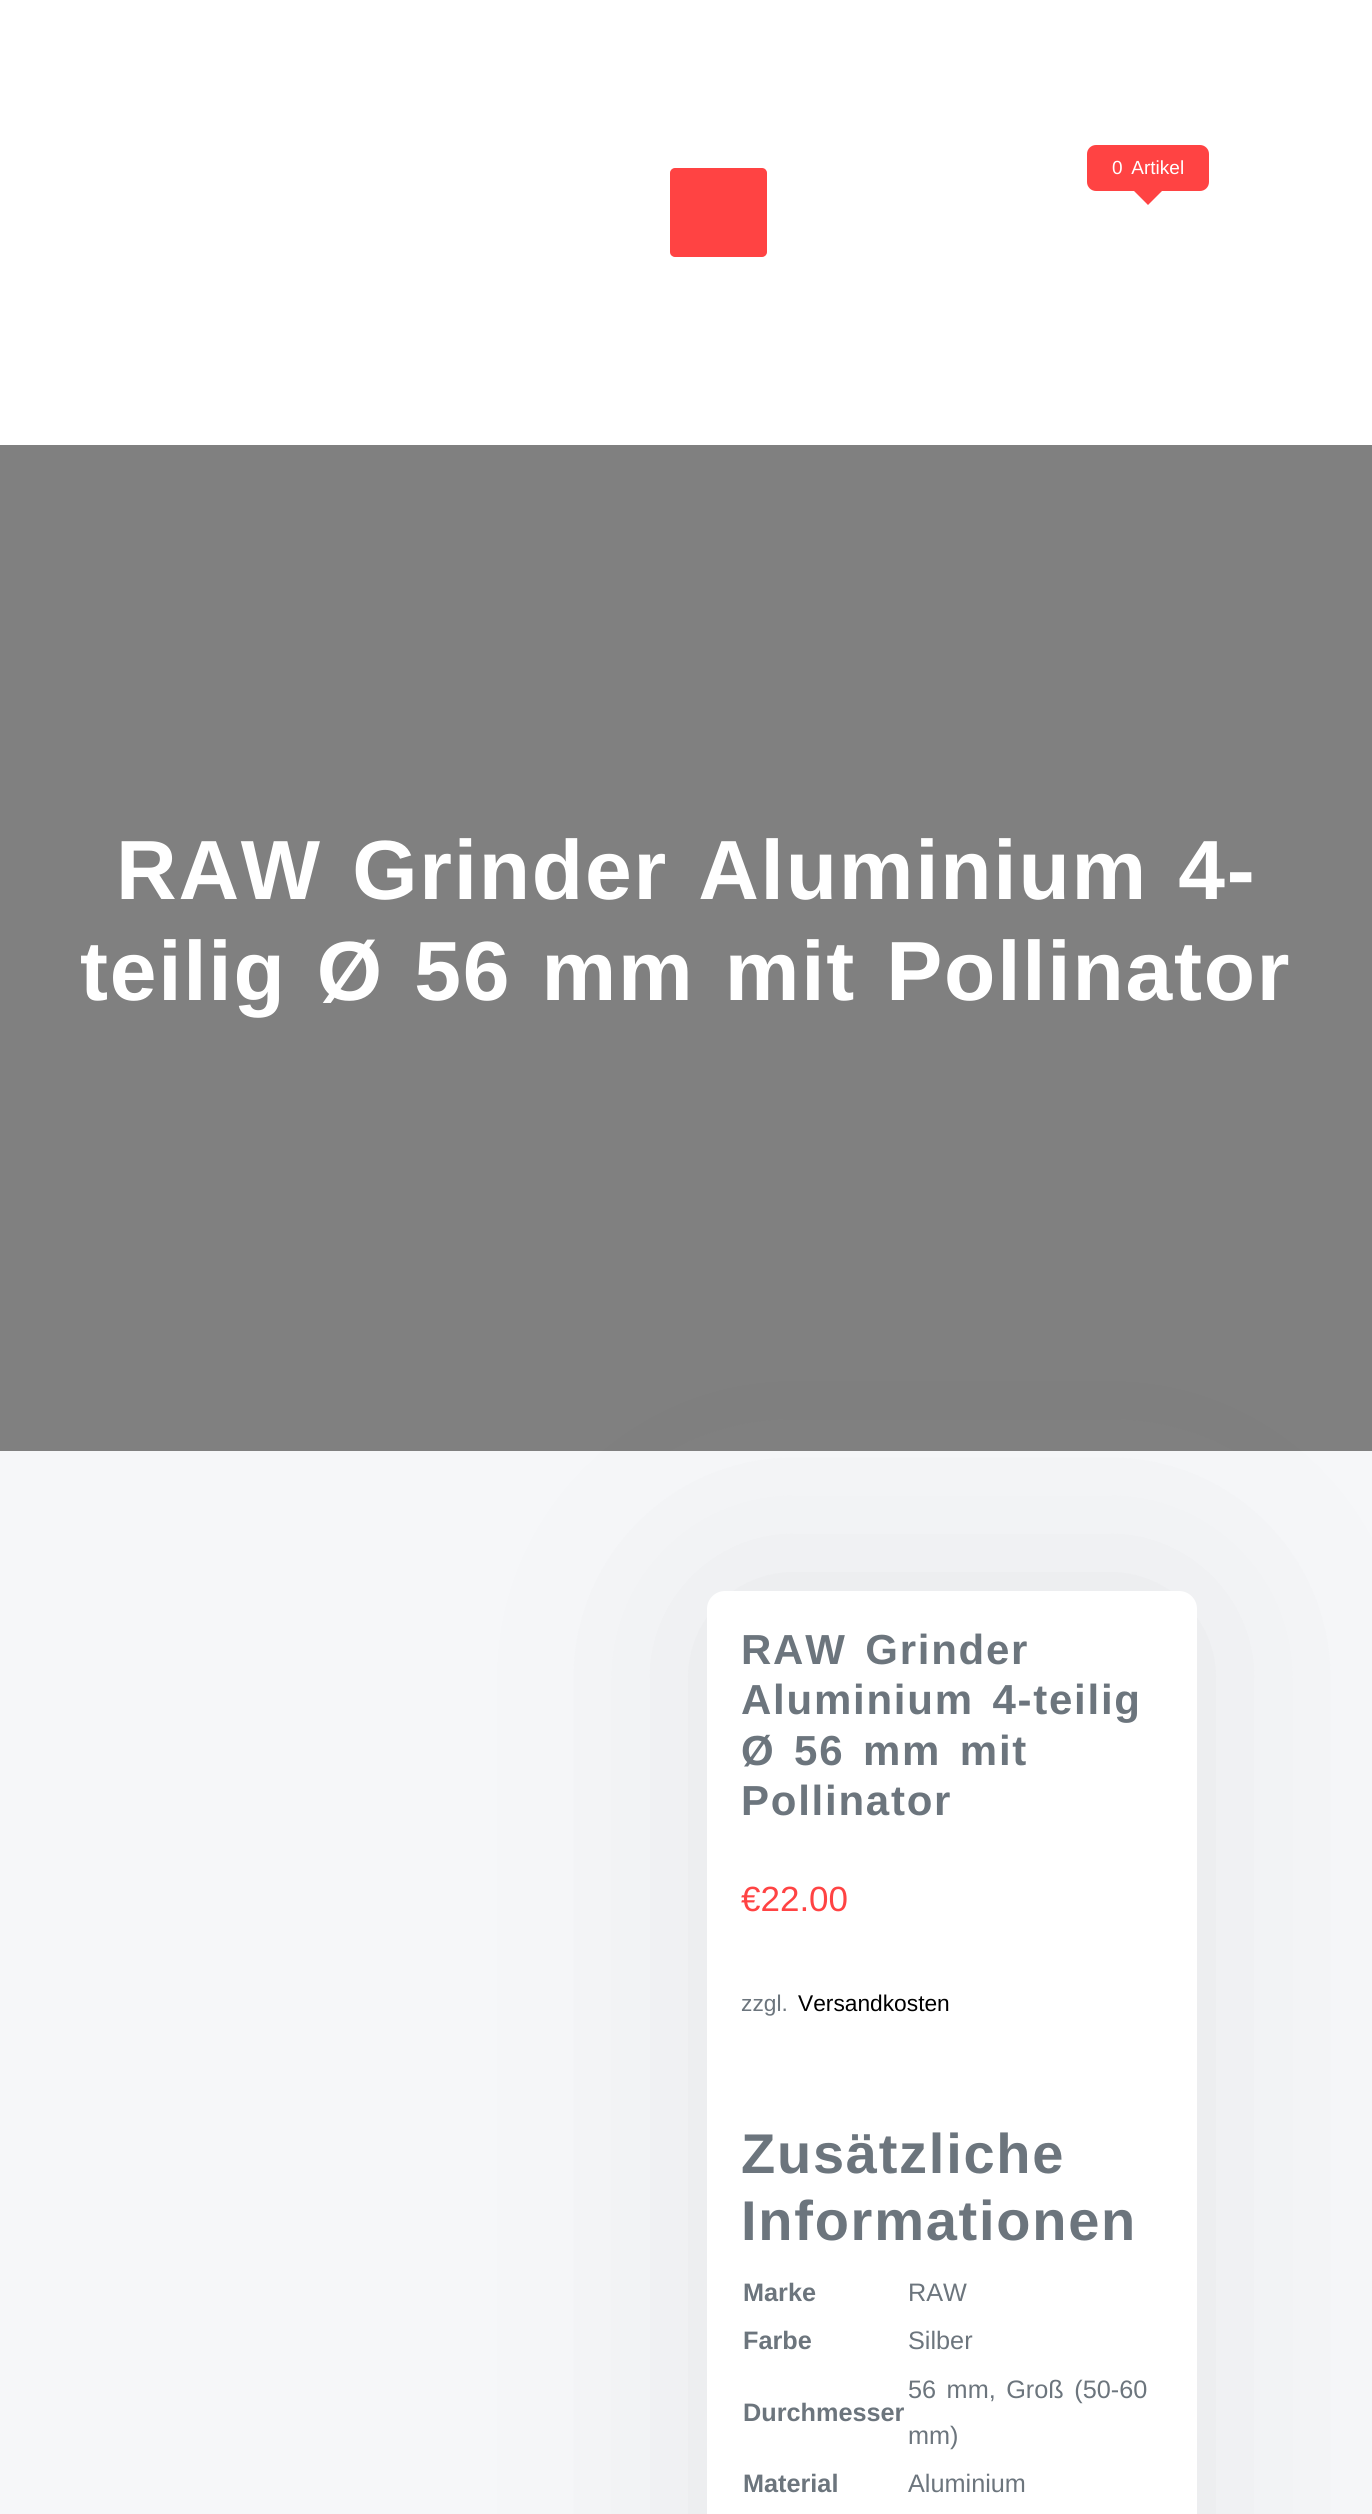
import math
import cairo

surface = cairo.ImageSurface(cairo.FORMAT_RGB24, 1372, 2514)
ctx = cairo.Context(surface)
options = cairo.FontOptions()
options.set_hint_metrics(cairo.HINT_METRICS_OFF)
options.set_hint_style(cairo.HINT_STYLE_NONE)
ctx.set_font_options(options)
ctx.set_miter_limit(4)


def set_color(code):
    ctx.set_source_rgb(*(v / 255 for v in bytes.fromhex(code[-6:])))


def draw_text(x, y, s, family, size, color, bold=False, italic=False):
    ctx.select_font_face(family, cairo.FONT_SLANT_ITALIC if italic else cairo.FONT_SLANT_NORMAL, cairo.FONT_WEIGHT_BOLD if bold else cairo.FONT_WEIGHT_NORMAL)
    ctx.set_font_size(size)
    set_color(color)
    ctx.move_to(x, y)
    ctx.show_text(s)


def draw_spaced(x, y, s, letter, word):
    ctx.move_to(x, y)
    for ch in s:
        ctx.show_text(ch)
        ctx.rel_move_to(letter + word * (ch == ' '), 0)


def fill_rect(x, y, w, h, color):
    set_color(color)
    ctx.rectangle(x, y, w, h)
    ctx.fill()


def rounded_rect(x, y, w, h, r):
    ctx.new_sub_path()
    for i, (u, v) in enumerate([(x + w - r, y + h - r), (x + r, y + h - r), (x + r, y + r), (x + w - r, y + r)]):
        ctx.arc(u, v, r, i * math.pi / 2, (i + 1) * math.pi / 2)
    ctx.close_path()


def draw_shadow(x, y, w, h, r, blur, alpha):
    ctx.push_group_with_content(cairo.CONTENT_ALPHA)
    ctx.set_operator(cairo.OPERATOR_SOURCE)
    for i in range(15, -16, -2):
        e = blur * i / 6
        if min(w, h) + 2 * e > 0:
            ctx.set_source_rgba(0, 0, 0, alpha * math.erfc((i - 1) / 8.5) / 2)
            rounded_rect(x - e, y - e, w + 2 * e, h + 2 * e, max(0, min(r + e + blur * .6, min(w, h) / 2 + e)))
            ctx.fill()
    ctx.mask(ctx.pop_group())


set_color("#f6f7f9")
ctx.paint()
fill_rect(0, 0, 1372, 445, "#ffffff")
set_color("#ff4343")
rounded_rect(671, 169, 95, 87, 4)
ctx.fill_preserve()
ctx.stroke()
rounded_rect(1087, 145, 122, 46, 9)
ctx.fill()
ctx.select_font_face("Liberation Sans")
ctx.set_font_size(19)
set_color("#ffffff")
draw_spaced(1112, 174, "0 Artikel", 0, 3.5)
set_color("#ff4343")
ctx.new_path()
ctx.move_to(1134, 191)
ctx.line_to(1162, 191)
ctx.line_to(1148, 205)
ctx.close_path()
ctx.fill()
fill_rect(0, 445, 1372, 1006, "#808080")
ctx.select_font_face("Liberation Sans", cairo.FONT_SLANT_NORMAL, cairo.FONT_WEIGHT_BOLD)
ctx.set_font_size(84)
set_color("#ffffff")
draw_spaced(116, 899, "RAW Grinder Aluminium 4-", 1.75, 5.25)
draw_spaced(80, 1000, "teilig Ø 56 mm mit Pollinator", 1.75, 5.25)
set_color("#4a4a4a")
draw_shadow(707, 1591, 490, 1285, 18, 114.5, 0.1)
set_color("#ffffff")
rounded_rect(707, 1591, 490, 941, 18)
ctx.fill()
ctx.set_font_size(42)
set_color("#6c757d")
draw_spaced(741, 1664, "RAW Grinder", 1.75, 5.25)
draw_spaced(741, 1714, "Aluminium 4-teilig", 1.75, 5.25)
draw_spaced(741, 1765, "Ø 56 mm mit", 1.75, 5.25)
draw_spaced(741, 1815, "Pollinator", 1.75, 0)
draw_text(741, 1911, "€22.00", "Liberation Sans", 35, "#ff4343")
draw_text(741, 2011, "zzgl.", "Liberation Sans", 22.75, "#6c757d")
draw_text(798, 2011, "Versandkosten", "Liberation Sans", 22.75, "#000000")
ctx.select_font_face("Liberation Sans", cairo.FONT_SLANT_NORMAL, cairo.FONT_WEIGHT_BOLD)
ctx.set_font_size(56)
set_color("#6c757d")
draw_spaced(741, 2173, "Zusätzliche", 1.75, 0)
draw_spaced(741, 2240, "Informationen", 1.75, 0)
draw_text(743, 2301, "Marke", "Liberation Sans", 25.25, "#6c757d", bold=True)
draw_text(908, 2301, "RAW", "Liberation Sans", 25.25, "#6c757d")
draw_text(743, 2349, "Farbe", "Liberation Sans", 25.25, "#6c757d", bold=True)
draw_text(908, 2349, "Silber", "Liberation Sans", 25.25, "#6c757d")
draw_text(743, 2421, "Durchmesser", "Liberation Sans", 25.25, "#6c757d", bold=True)
ctx.select_font_face("Liberation Sans")
draw_spaced(908, 2398, "56 mm, Groß (50-60", 0, 3.5)
draw_text(908, 2444, "mm)", "Liberation Sans", 25.25, "#6c757d")
draw_text(743, 2492, "Material", "Liberation Sans", 25.25, "#6c757d", bold=True)
draw_text(908, 2492, "Aluminium", "Liberation Sans", 25.25, "#6c757d")
surface.write_to_png("output.png")
